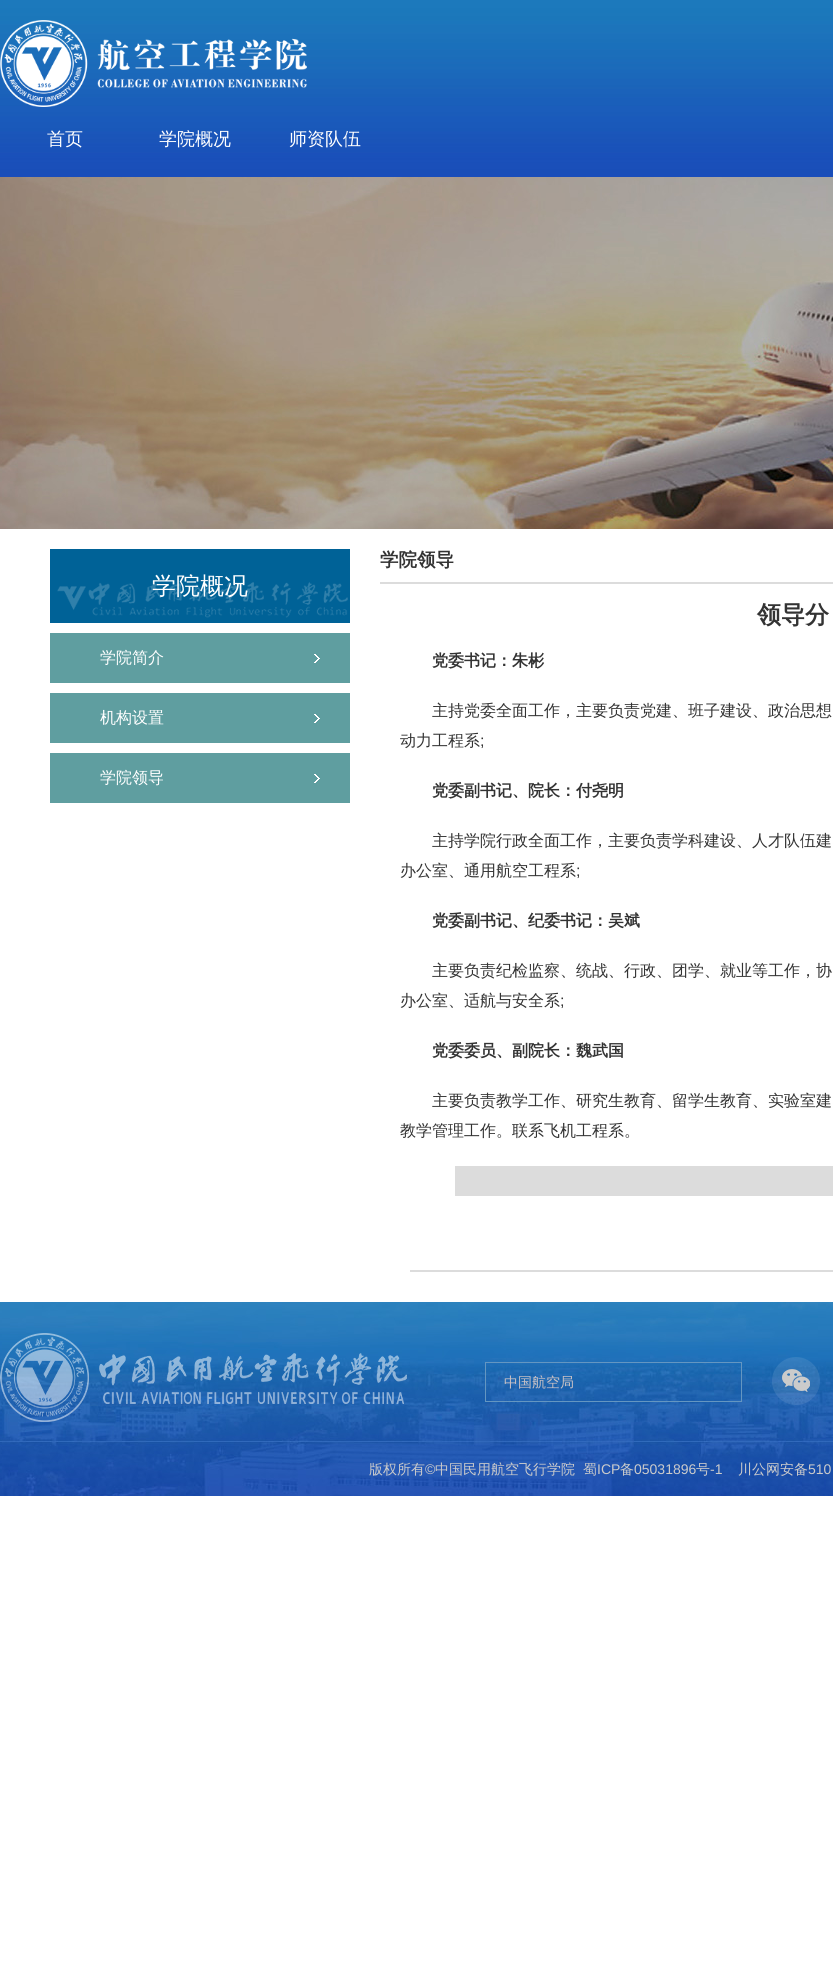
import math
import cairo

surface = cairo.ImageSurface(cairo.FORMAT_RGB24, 833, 1980)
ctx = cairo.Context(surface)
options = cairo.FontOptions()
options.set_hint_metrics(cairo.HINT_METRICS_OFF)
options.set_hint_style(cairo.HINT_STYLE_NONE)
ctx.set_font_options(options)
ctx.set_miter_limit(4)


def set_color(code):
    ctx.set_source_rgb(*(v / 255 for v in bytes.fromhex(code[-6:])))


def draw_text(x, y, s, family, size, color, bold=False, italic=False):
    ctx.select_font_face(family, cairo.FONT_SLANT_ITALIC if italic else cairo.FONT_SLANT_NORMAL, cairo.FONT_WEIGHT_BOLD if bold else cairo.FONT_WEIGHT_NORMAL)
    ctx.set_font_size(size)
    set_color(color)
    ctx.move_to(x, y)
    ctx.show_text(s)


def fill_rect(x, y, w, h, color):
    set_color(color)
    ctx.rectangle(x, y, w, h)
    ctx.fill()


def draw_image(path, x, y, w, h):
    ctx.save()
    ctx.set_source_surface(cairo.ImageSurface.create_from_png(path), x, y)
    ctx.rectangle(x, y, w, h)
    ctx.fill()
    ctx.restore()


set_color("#ffffff")
ctx.paint()
draw_image("assets/img1.png", 0, 0, 833, 177)
draw_image("assets/img2.png", 0, 20, 307, 87)
draw_text(47, 145, "首页", "WenQuanYi Zen Hei Medium", 18, "#ffffff")
draw_text(159, 145, "学院概况", "WenQuanYi Zen Hei Medium", 18, "#ffffff")
draw_text(289, 145, "师资队伍", "WenQuanYi Zen Hei Medium", 18, "#ffffff")
draw_image("assets/img3.png", 0, 177, 833, 352)
draw_image("assets/img4.png", 50, 549, 300, 74)
draw_text(152, 594, "学院概况", "WenQuanYi Zen Hei Medium", 24, "#ffffff")
fill_rect(50, 633, 300, 50, "#5f9ea0")
draw_text(100, 663, "学院简介", "WenQuanYi Zen Hei Medium", 16, "#ffffff")
draw_image("assets/img5.png", 314, 654, 6, 9)
fill_rect(50, 693, 300, 50, "#5f9ea0")
draw_text(100, 723, "机构设置", "WenQuanYi Zen Hei Medium", 16, "#ffffff")
draw_image("assets/img5.png", 314, 714, 6, 9)
fill_rect(50, 753, 300, 50, "#5f9ea0")
draw_text(100, 783, "学院领导", "WenQuanYi Zen Hei Medium", 16, "#ffffff")
draw_image("assets/img5.png", 314, 774, 6, 9)
draw_text(380, 566, "学院领导", "WenQuanYi Zen Hei", 18.5, "#333333", bold=True)
fill_rect(380, 582, 453, 2, "#dcdcdc")
draw_text(757, 623, "领导分", "WenQuanYi Zen Hei", 24, "#333333", bold=True)
draw_text(432, 666, "党委书记：朱彬", "WenQuanYi Zen Hei", 16, "#333333", bold=True)
draw_text(432, 716, "主持党委全面工作，主要负责党建、班子建设、政治思想", "WenQuanYi Zen Hei Medium", 16, "#333333")
draw_text(400, 746, "动力工程系", "WenQuanYi Zen Hei Medium", 16, "#333333")
draw_text(480, 746, ";", "Liberation Sans", 16, "#333333")
draw_text(432, 796, "党委副书记、院长：付尧明", "WenQuanYi Zen Hei", 16, "#333333", bold=True)
draw_text(432, 846, "主持学院行政全面工作，主要负责学科建设、人才队伍建", "WenQuanYi Zen Hei Medium", 16, "#333333")
draw_text(400, 876, "办公室、通用航空工程系", "WenQuanYi Zen Hei Medium", 16, "#333333")
draw_text(576, 876, ";", "Liberation Sans", 16, "#333333")
draw_text(432, 926, "党委副书记、纪委书记：吴斌", "WenQuanYi Zen Hei", 16, "#333333", bold=True)
draw_text(432, 976, "主要负责纪检监察、统战、行政、团学、就业等工作，协", "WenQuanYi Zen Hei Medium", 16, "#333333")
draw_text(400, 1006, "办公室、适航与安全系", "WenQuanYi Zen Hei Medium", 16, "#333333")
draw_text(560, 1006, ";", "Liberation Sans", 16, "#333333")
draw_text(432, 1056, "党委委员、副院长：魏武国", "WenQuanYi Zen Hei", 16, "#333333", bold=True)
draw_text(432, 1106, "主要负责教学工作、研究生教育、留学生教育、实验室建", "WenQuanYi Zen Hei Medium", 16, "#333333")
draw_text(400, 1136, "教学管理工作。联系飞机工程系。", "WenQuanYi Zen Hei Medium", 16, "#333333")
fill_rect(455, 1166, 378, 30, "#dcdcdc")
fill_rect(410, 1270, 423, 2, "#dcdcdc")
draw_image("assets/img6.png", 0, 1302, 833, 194)
draw_image("assets/img7.png", 0, 1333, 407, 89)
ctx.rectangle(485.5, 1362.5, 256, 39)
set_color("#6496c1")
ctx.set_line_width(1)
ctx.stroke()
draw_text(504, 1387, "中国航空局", "WenQuanYi Zen Hei Medium", 14, "#cbc2c5")
draw_image("assets/img8.png", 772, 1357, 48, 48)
draw_text(369, 1474, "版权所有", "WenQuanYi Zen Hei Medium", 14, "#cbcbcb")
draw_text(425, 1474, "©", "Liberation Sans", 14, "#cbcbcb")
draw_text(435, 1474, "中国民用航空飞行学院", "WenQuanYi Zen Hei Medium", 14, "#cbcbcb")
draw_text(583, 1474, "蜀", "WenQuanYi Zen Hei Medium", 14, "#cbcbcb")
draw_text(597, 1474, "ICP", "Liberation Sans", 14, "#cbcbcb")
draw_text(620, 1474, "备", "WenQuanYi Zen Hei Medium", 14, "#cbcbcb")
draw_text(634, 1474, "05031896", "Liberation Sans", 14, "#cbcbcb")
draw_text(696, 1474, "号", "WenQuanYi Zen Hei Medium", 14, "#cbcbcb")
draw_text(710, 1474, "-1", "Liberation Sans", 14, "#cbcbcb")
draw_text(738, 1474, "川公网安备", "WenQuanYi Zen Hei Medium", 14, "#cbcbcb")
draw_text(808, 1474, "510", "Liberation Sans", 14, "#cbcbcb")
surface.write_to_png("output.png")
